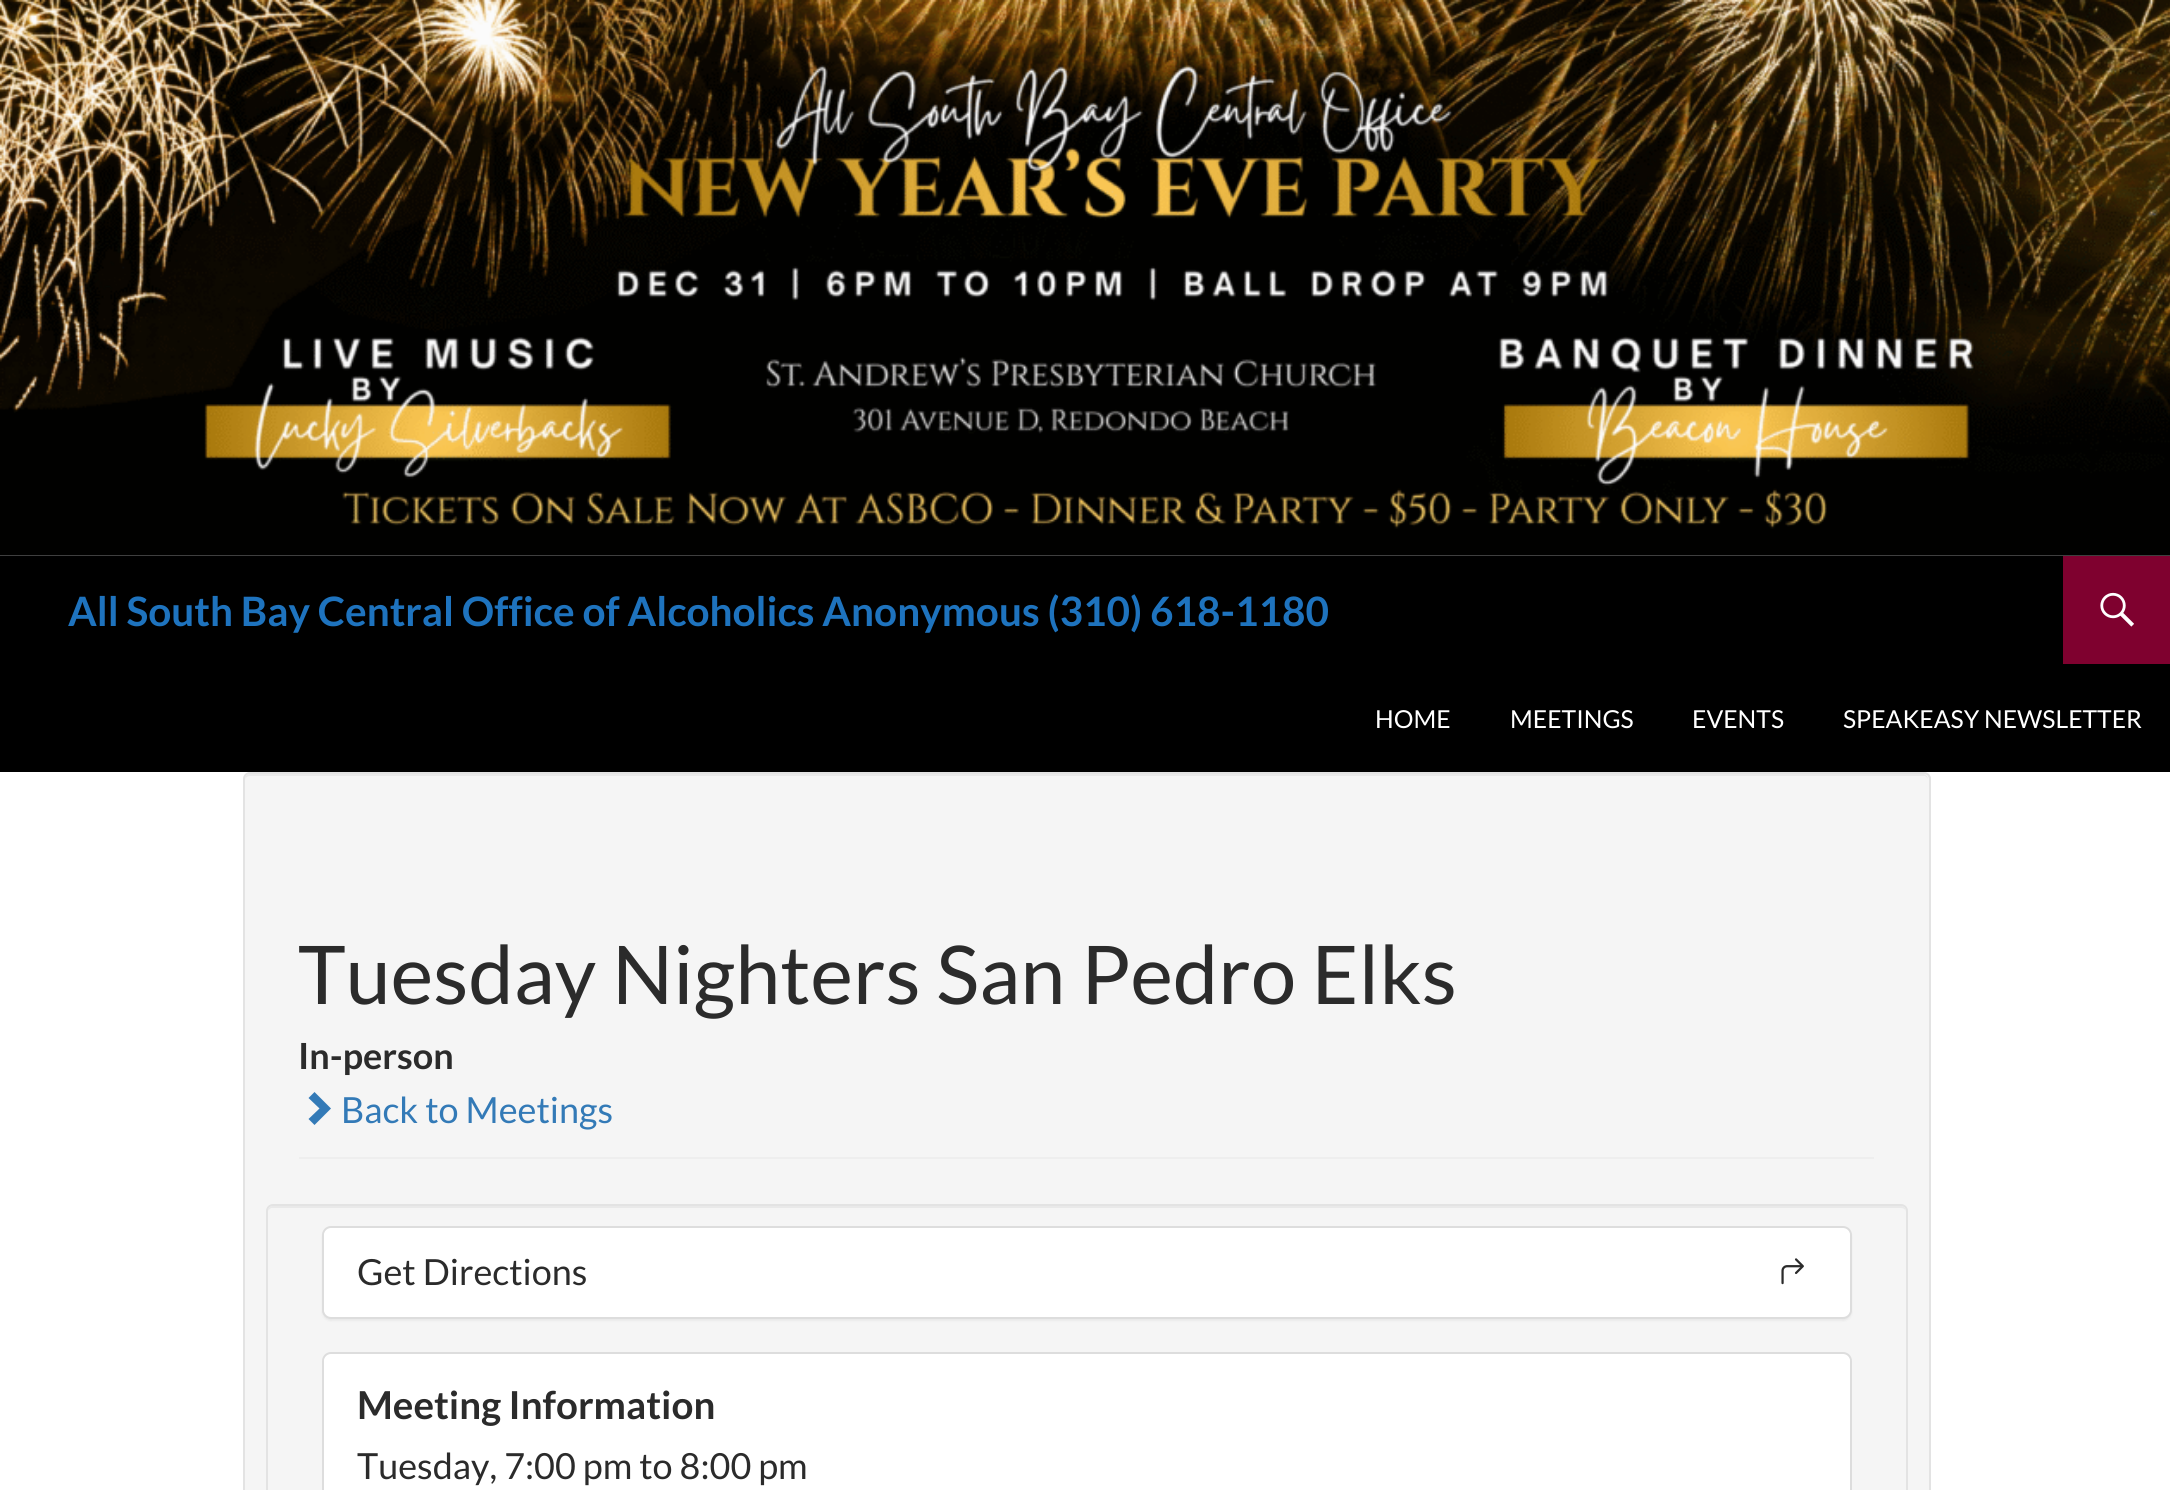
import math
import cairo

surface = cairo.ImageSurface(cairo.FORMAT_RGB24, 2170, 1490)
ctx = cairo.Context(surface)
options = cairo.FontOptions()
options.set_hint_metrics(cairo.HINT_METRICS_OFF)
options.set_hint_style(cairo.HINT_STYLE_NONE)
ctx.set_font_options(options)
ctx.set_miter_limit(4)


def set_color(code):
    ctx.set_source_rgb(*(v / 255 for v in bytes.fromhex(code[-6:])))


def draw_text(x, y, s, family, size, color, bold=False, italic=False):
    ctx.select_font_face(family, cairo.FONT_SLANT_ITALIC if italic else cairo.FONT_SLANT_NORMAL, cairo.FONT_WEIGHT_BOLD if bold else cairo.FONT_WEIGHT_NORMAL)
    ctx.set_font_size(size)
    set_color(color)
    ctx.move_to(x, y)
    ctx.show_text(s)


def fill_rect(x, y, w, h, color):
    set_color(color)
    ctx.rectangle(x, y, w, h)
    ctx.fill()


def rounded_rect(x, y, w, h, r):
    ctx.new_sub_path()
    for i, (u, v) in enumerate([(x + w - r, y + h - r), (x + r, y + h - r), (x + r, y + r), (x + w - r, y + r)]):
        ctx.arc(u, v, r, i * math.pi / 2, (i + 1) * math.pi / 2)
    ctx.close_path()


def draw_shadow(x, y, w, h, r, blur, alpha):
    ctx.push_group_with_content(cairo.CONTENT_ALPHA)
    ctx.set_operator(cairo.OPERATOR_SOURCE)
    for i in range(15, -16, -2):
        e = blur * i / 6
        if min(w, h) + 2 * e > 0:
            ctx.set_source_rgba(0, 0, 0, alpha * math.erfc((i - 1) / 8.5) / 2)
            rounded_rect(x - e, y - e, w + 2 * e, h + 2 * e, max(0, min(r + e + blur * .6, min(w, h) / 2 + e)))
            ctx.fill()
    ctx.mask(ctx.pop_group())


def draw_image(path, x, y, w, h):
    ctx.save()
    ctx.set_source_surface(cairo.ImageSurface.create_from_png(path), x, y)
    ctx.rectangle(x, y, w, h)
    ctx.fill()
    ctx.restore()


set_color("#ffffff")
ctx.paint()
draw_image("assets/img1.png", 0, 0, 2170, 556)
fill_rect(0, 556, 2170, 216, "#000000")
draw_text(68, 626, "All South Bay Central Office of Alcoholics Anonymous (310) 618-1180", "Lato", 40.5, "#1e73be", bold=True)
fill_rect(2063, 556, 107, 108, "#7f012f")
draw_image("assets/img2.png", 2100, 592, 34, 35)
draw_text(1375, 728, "HOME", "Lato", 24.75, "#ffffff")
draw_text(1510, 728, "MEETINGS", "Lato", 24.75, "#ffffff")
draw_text(1692, 728, "EVENTS", "Lato", 24.75, "#ffffff")
draw_text(1843, 728, "SPEAKEASY NEWSLETTER", "Lato", 24.75, "#ffffff")
set_color("#f5f5f5")
rounded_rect(243, 772, 1688, 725, 7)
ctx.fill()
set_color("#e9e9e9")
ctx.new_path()
ctx.move_to(250, 776)
ctx.line_to(1924, 776)
ctx.curve_to(1926, 776, 1928, 778, 1928, 781)
ctx.curve_to(1928, 778, 1927, 774, 1923, 774)
ctx.line_to(250, 774)
ctx.curve_to(246, 774, 245, 778, 245, 781)
ctx.curve_to(245, 778, 247, 776, 250, 776)
ctx.close_path()
ctx.fill()
rounded_rect(244, 773, 1686, 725, 6)
set_color("#e3e3e3")
ctx.stroke()
fill_rect(299, 1157, 1575, 2, "#eeeeee")
draw_text(298, 1004, "Tuesday Nighters San Pedro Elks", "Lato", 81, "#2b2b2b")
draw_text(298, 1069, "In-person", "Lato", 36, "#2b2b2b", bold=True)
set_color("#337ab7")
ctx.new_path()
ctx.move_to(331, 1108.5)
ctx.line_to(314.5, 1125)
ctx.line_to(308.5, 1119)
ctx.line_to(319.5, 1108.5)
ctx.line_to(308.5, 1098)
ctx.line_to(314.5, 1092)
ctx.close_path()
ctx.fill()
draw_text(341, 1123, "Back to Meetings", "Lato", 36, "#337ab7")
set_color("#e9e9e9")
ctx.new_path()
ctx.move_to(272, 1208)
ctx.line_to(1901, 1208)
ctx.curve_to(1904, 1208, 1906, 1210, 1906, 1213)
ctx.curve_to(1906, 1210, 1905, 1206, 1901, 1206)
ctx.line_to(273, 1206)
ctx.curve_to(269, 1206, 268, 1210, 268, 1213)
ctx.curve_to(268, 1210, 270, 1208, 272, 1208)
ctx.close_path()
ctx.fill()
rounded_rect(267, 1205, 1640, 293, 6)
set_color("#e3e3e3")
ctx.stroke()
set_color("#000000")
draw_shadow(322, 1229, 1530, 92, 9, 1, 0.05)
set_color("#ffffff")
rounded_rect(323, 1227, 1528, 91, 8)
ctx.fill_preserve()
set_color("#dddddd")
ctx.stroke()
set_color("#ffffff")
rounded_rect(324, 1229, 1526, 87, 7)
ctx.fill()
draw_text(357, 1285, "Get Directions", "Lato", 36, "#2b2b2b")
draw_image("assets/img3.png", 1781, 1258, 23, 27)
set_color("#ffffff")
rounded_rect(323, 1353, 1528, 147, 8)
ctx.fill_preserve()
set_color("#dddddd")
ctx.stroke()
set_color("#ffffff")
ctx.new_path()
ctx.move_to(331, 1355)
ctx.line_to(1843, 1355)
ctx.curve_to(1847, 1355, 1850, 1358, 1850, 1362)
ctx.line_to(1850, 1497)
ctx.line_to(324, 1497)
ctx.line_to(324, 1362)
ctx.curve_to(324, 1358, 327, 1355, 331, 1355)
ctx.close_path()
ctx.fill()
draw_text(357, 1419, "Meeting Information", "Lato", 38.5, "#2b2b2b", bold=True)
draw_text(357, 1479, "Tuesday, 7:00 pm to 8:00 pm", "Lato", 36, "#2b2b2b")
surface.write_to_png("output.png")
